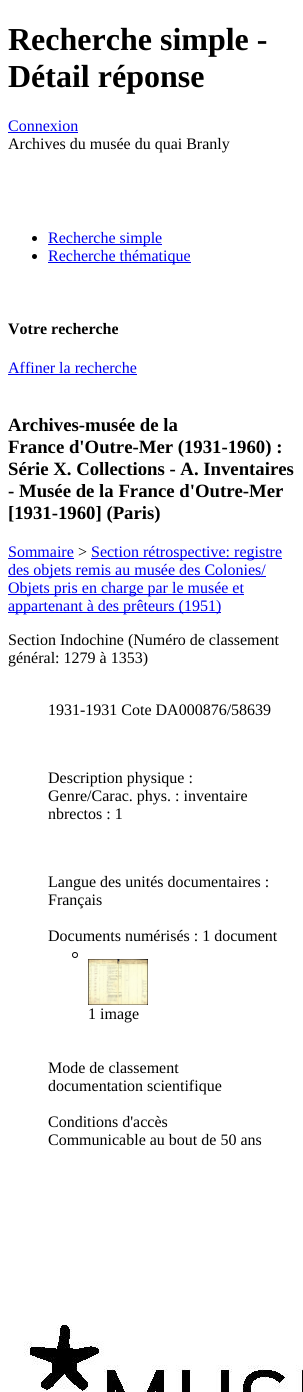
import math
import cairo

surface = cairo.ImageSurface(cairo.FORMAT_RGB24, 303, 1392)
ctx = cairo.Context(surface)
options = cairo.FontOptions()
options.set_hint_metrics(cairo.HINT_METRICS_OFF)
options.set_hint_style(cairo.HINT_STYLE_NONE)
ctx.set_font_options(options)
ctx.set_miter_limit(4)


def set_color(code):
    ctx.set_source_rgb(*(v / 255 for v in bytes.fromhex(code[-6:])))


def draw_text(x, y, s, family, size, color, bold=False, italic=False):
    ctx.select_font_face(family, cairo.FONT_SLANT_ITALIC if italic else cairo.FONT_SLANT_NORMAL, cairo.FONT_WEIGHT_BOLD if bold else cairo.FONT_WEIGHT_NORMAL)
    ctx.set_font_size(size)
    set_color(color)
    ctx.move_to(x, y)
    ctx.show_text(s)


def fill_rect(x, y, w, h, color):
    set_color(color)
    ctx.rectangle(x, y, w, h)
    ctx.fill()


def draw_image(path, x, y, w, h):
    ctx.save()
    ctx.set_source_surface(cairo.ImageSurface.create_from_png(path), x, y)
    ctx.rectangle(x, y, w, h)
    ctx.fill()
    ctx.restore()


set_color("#ffffff")
ctx.paint()
draw_text(8, 50, "Recherche simple -", "Liberation Serif", 32, "#000000", bold=True)
draw_text(8, 87, "Détail réponse", "Liberation Serif", 32, "#000000", bold=True)
draw_text(8, 131, "Connexion", "Liberation Serif", 16, "#0000ee")
fill_rect(8, 132, 70, 1, "#0000ee")
draw_text(8, 149, "Archives du musée du quai Branly", "Liberation Serif", 16, "#000000")
ctx.new_path()
ctx.arc(34.5, 238.5, 2.5, 0, 2 * math.pi)
ctx.fill()
fill_rect(48, 244, 114, 1, "#0000ee")
draw_text(48, 243, "Recherche simple", "Liberation Serif", 16, "#0000ee")
set_color("#000000")
ctx.new_path()
ctx.arc(34.5, 256.5, 2.5, 0, 2 * math.pi)
ctx.fill()
fill_rect(48, 262, 143, 1, "#0000ee")
draw_text(48, 261, "Recherche thématique", "Liberation Serif", 16, "#0000ee")
draw_text(8, 334, "Votre recherche", "Liberation Serif", 16, "#000000", bold=True)
draw_text(8, 373, "Affiner la recherche", "Liberation Serif", 16, "#0000ee")
fill_rect(8, 374, 129, 1, "#0000ee")
draw_text(8, 431, "Archives-musée de la", "Liberation Serif", 18.75, "#000000", bold=True)
draw_text(8, 453, "France d'Outre-Mer (1931-1960) :", "Liberation Serif", 18.75, "#000000", bold=True)
draw_text(8, 475, "Série X. Collections - A. Inventaires", "Liberation Serif", 18.75, "#000000", bold=True)
draw_text(8, 497, "- Musée de la France d'Outre-Mer", "Liberation Serif", 18.75, "#000000", bold=True)
draw_text(8, 519, "[1931-1960] (Paris)", "Liberation Serif", 18.75, "#000000", bold=True)
draw_text(8, 557, "Sommaire", "Liberation Serif", 16, "#0000ee")
fill_rect(8, 558, 66, 1, "#0000ee")
draw_text(78, 557, ">", "Liberation Serif", 16, "#000000")
fill_rect(91, 558, 191, 1, "#0000ee")
draw_text(91, 557, "Section rétrospective: registre", "Liberation Serif", 16, "#0000ee")
fill_rect(8, 576, 258, 1, "#0000ee")
draw_text(8, 575, "des objets remis au musée des Colonies/", "Liberation Serif", 16, "#0000ee")
fill_rect(8, 594, 236, 1, "#0000ee")
draw_text(8, 593, "Objets pris en charge par le musée et", "Liberation Serif", 16, "#0000ee")
fill_rect(8, 612, 213, 1, "#0000ee")
draw_text(8, 611, "appartenant à des prêteurs (1951)", "Liberation Serif", 16, "#0000ee")
draw_text(8, 645, "Section Indochine (Numéro de classement", "Liberation Serif", 16, "#000000")
draw_text(8, 663, "général: 1279 à 1353)", "Liberation Serif", 16, "#000000")
draw_text(48, 715, "1931-1931 Cote DA000876/58639", "Liberation Serif", 16, "#000000")
draw_text(48, 783, "Description physique :", "Liberation Serif", 16, "#000000")
draw_text(48, 801, "Genre/Carac. phys. : inventaire", "Liberation Serif", 16, "#000000")
draw_text(48, 819, "nbrectos : 1", "Liberation Serif", 16, "#000000")
draw_text(48, 887, "Langue des unités documentaires :", "Liberation Serif", 16, "#000000")
draw_text(48, 905, "Français", "Liberation Serif", 16, "#000000")
draw_text(48, 941, "Documents numérisés : 1 document", "Liberation Serif", 16, "#000000")
ctx.new_path()
ctx.arc(75, 955, 2.5, 0, 2 * math.pi)
ctx.set_line_width(1)
ctx.stroke()
draw_image("assets/img1.png", 88, 959, 60, 46)
draw_text(88, 1019, "1 image", "Liberation Serif", 16, "#000000")
draw_text(48, 1073, "Mode de classement", "Liberation Serif", 16, "#000000")
draw_text(48, 1091, "documentation scientifique", "Liberation Serif", 16, "#000000")
draw_text(48, 1127, "Conditions d'accès", "Liberation Serif", 16, "#000000")
draw_text(48, 1145, "Communicable au bout de 50 ans", "Liberation Serif", 16, "#000000")
draw_image("assets/img2.png", 24, 1325, 279, 67)
surface.write_to_png("output.png")
